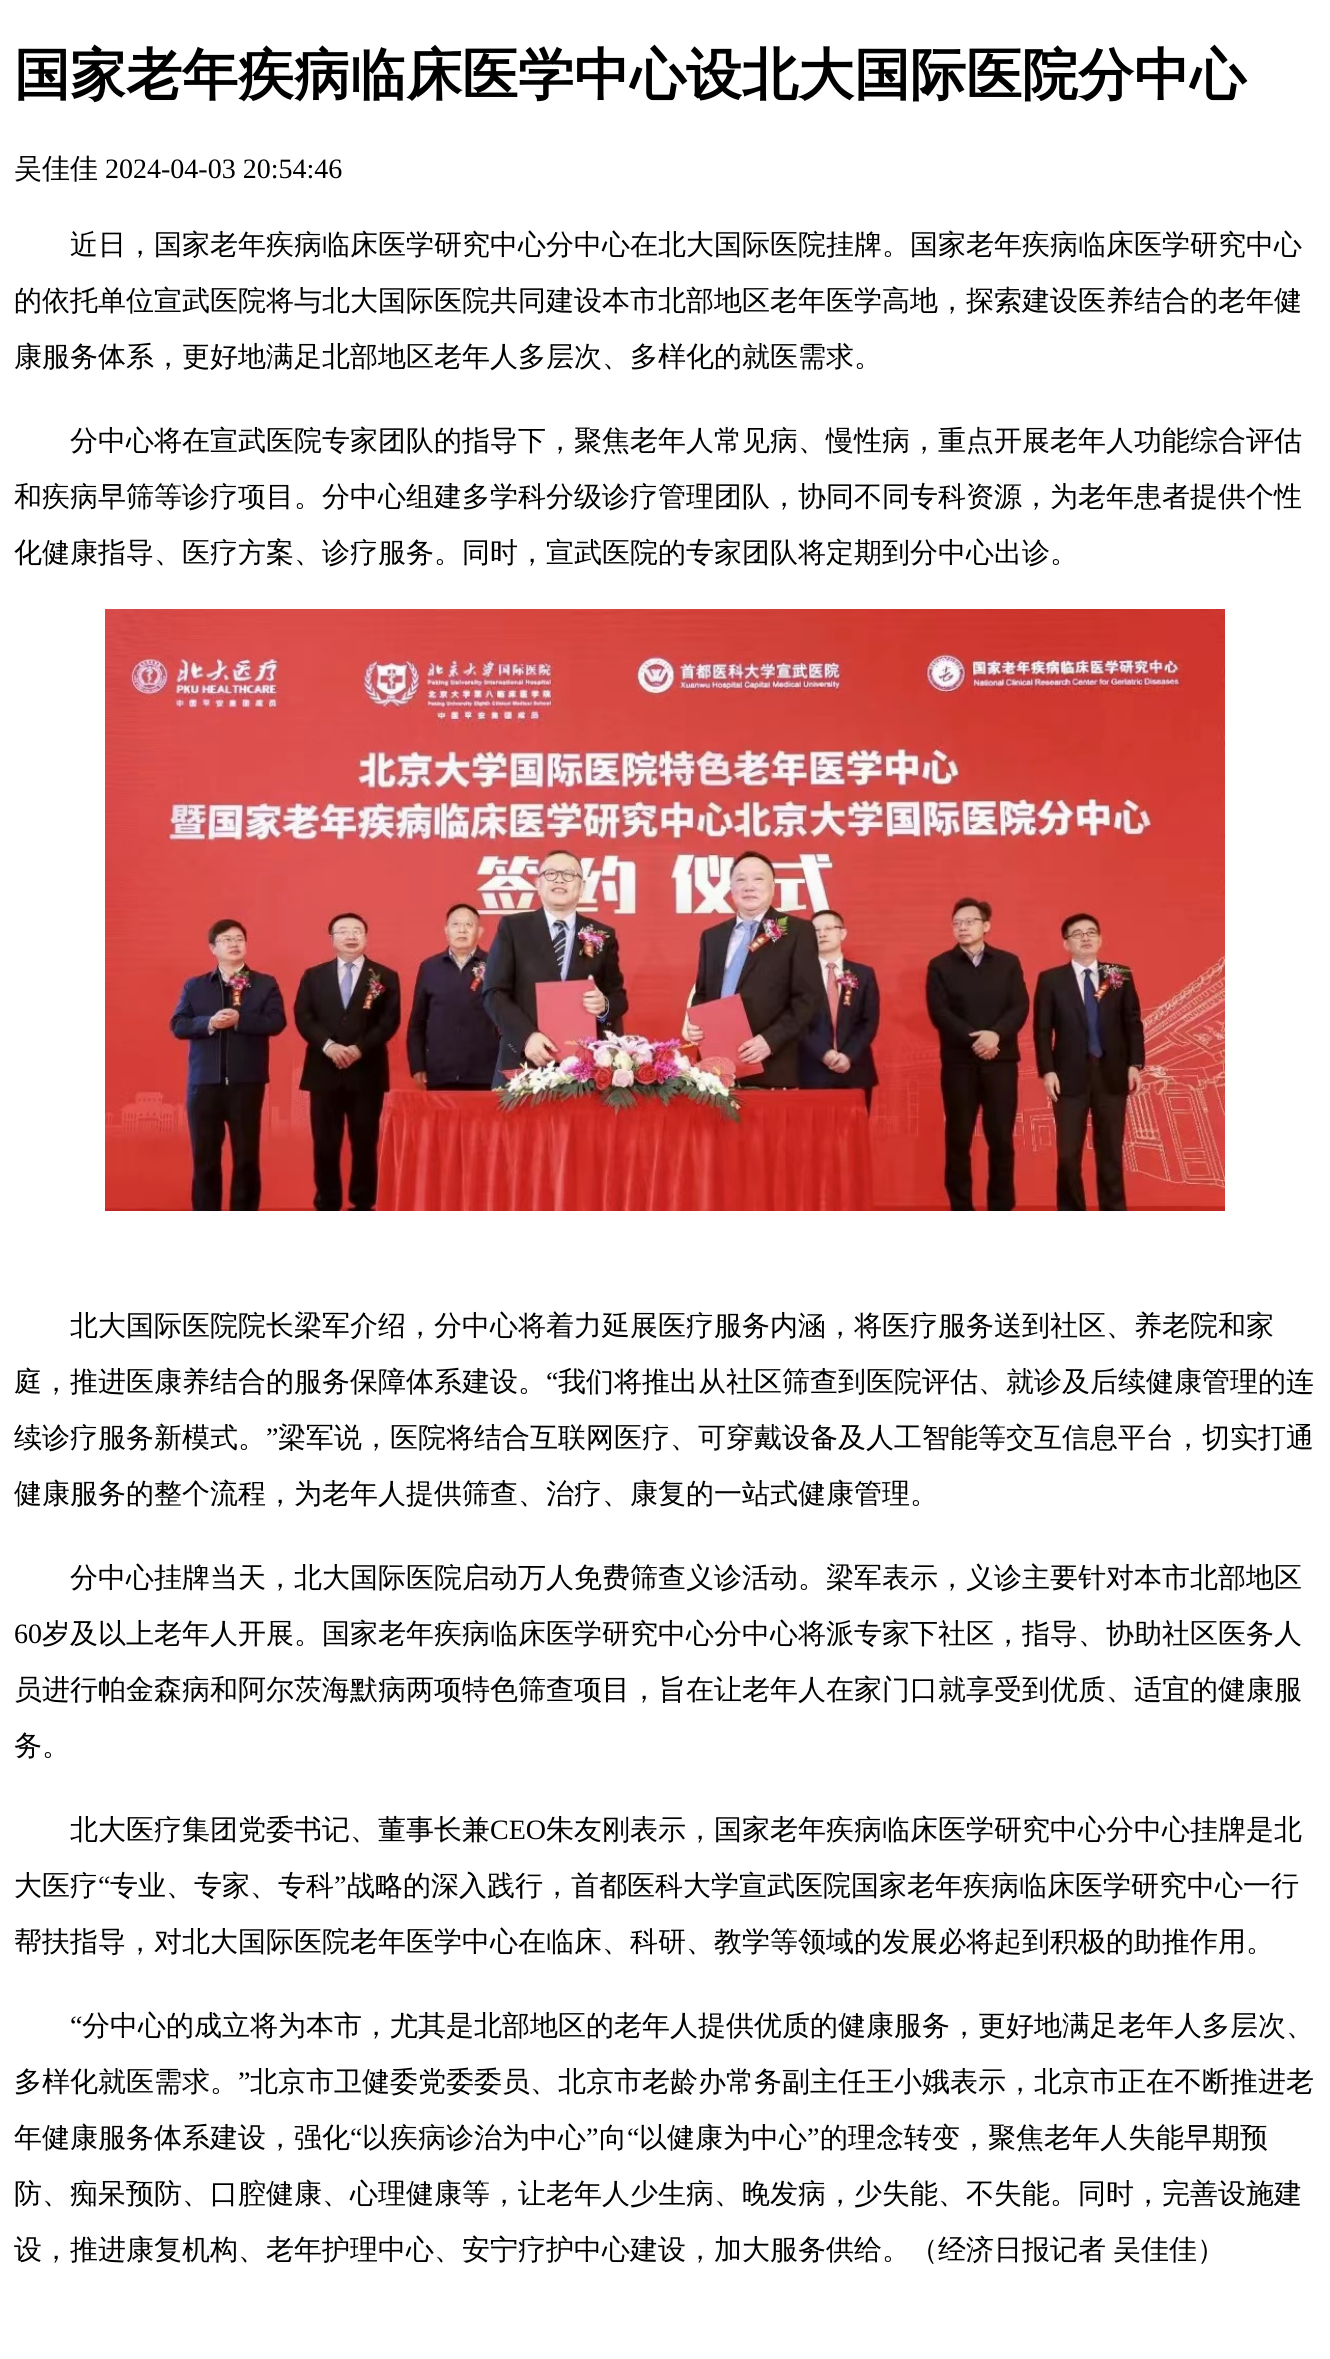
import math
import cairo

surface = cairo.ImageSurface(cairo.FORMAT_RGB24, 1330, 2359)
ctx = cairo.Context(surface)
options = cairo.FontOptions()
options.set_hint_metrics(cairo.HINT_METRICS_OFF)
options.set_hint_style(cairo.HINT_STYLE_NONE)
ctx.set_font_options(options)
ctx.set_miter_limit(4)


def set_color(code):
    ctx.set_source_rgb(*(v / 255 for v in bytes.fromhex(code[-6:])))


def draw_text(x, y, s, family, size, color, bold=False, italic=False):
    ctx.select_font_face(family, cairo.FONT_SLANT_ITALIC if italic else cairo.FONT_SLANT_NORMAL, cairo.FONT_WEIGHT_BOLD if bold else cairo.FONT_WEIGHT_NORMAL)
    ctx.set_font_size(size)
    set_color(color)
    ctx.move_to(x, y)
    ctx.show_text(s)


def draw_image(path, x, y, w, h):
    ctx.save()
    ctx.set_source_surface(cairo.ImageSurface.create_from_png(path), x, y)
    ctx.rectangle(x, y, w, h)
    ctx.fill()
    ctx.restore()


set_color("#ffffff")
ctx.paint()
draw_text(14, 94, "国家老年疾病临床医学中心设北大国际医院分中心", "WenQuanYi Zen Hei", 56, "#000000", bold=True)
draw_text(14, 178, "吴佳佳", "WenQuanYi Zen Hei Medium", 28, "#000000")
draw_text(105, 178, "2024-04-03 20:54:46", "Liberation Serif", 28, "#000000")
draw_text(70, 254, "近日，国家老年疾病临床医学研究中心分中心在北大国际医院挂牌。国家老年疾病临床医学研究中心", "WenQuanYi Zen Hei Medium", 28, "#000000")
draw_text(14, 310, "的依托单位宣武医院将与北大国际医院共同建设本市北部地区老年医学高地，探索建设医养结合的老年健", "WenQuanYi Zen Hei Medium", 28, "#000000")
draw_text(14, 366, "康服务体系，更好地满足北部地区老年人多层次、多样化的就医需求。", "WenQuanYi Zen Hei Medium", 28, "#000000")
draw_text(70, 450, "分中心将在宣武医院专家团队的指导下，聚焦老年人常见病、慢性病，重点开展老年人功能综合评估", "WenQuanYi Zen Hei Medium", 28, "#000000")
draw_text(14, 506, "和疾病早筛等诊疗项目。分中心组建多学科分级诊疗管理团队，协同不同专科资源，为老年患者提供个性", "WenQuanYi Zen Hei Medium", 28, "#000000")
draw_text(14, 562, "化健康指导、医疗方案、诊疗服务。同时，宣武医院的专家团队将定期到分中心出诊。", "WenQuanYi Zen Hei Medium", 28, "#000000")
draw_image("assets/img1.png", 105, 609, 1120, 602)
draw_text(70, 1335, "北大国际医院院长梁军介绍，分中心将着力延展医疗服务内涵，将医疗服务送到社区、养老院和家", "WenQuanYi Zen Hei Medium", 28, "#000000")
draw_text(14, 1391, "庭，推进医康养结合的服务保障体系建设。", "WenQuanYi Zen Hei Medium", 28, "#000000")
draw_text(546, 1391, "“", "Liberation Serif", 28, "#000000")
draw_text(558, 1391, "我们将推出从社区筛查到医院评估、就诊及后续健康管理的连", "WenQuanYi Zen Hei Medium", 28, "#000000")
draw_text(14, 1447, "续诊疗服务新模式。", "WenQuanYi Zen Hei Medium", 28, "#000000")
draw_text(266, 1447, "”", "Liberation Serif", 28, "#000000")
draw_text(278, 1447, "梁军说，医院将结合互联网医疗、可穿戴设备及人工智能等交互信息平台，切实打通", "WenQuanYi Zen Hei Medium", 28, "#000000")
draw_text(14, 1503, "健康服务的整个流程，为老年人提供筛查、治疗、康复的一站式健康管理。", "WenQuanYi Zen Hei Medium", 28, "#000000")
draw_text(70, 1587, "分中心挂牌当天，北大国际医院启动万人免费筛查义诊活动。梁军表示，义诊主要针对本市北部地区", "WenQuanYi Zen Hei Medium", 28, "#000000")
draw_text(14, 1643, "60", "Liberation Serif", 28, "#000000")
draw_text(42, 1643, "岁及以上老年人开展。国家老年疾病临床医学研究中心分中心将派专家下社区，指导、协助社区医务人", "WenQuanYi Zen Hei Medium", 28, "#000000")
draw_text(14, 1699, "员进行帕金森病和阿尔茨海默病两项特色筛查项目，旨在让老年人在家门口就享受到优质、适宜的健康服", "WenQuanYi Zen Hei Medium", 28, "#000000")
draw_text(14, 1755, "务。", "WenQuanYi Zen Hei Medium", 28, "#000000")
draw_text(70, 1839, "北大医疗集团党委书记、董事长兼", "WenQuanYi Zen Hei Medium", 28, "#000000")
draw_text(490, 1839, "CEO", "Liberation Serif", 28, "#000000")
draw_text(546, 1839, "朱友刚表示，国家老年疾病临床医学研究中心分中心挂牌是北", "WenQuanYi Zen Hei Medium", 28, "#000000")
draw_text(14, 1895, "大医疗", "WenQuanYi Zen Hei Medium", 28, "#000000")
draw_text(98, 1895, "“", "Liberation Serif", 28, "#000000")
draw_text(110, 1895, "专业、专家、专科", "WenQuanYi Zen Hei Medium", 28, "#000000")
draw_text(334, 1895, "”", "Liberation Serif", 28, "#000000")
draw_text(347, 1895, "战略的深入践行，首都医科大学宣武医院国家老年疾病临床医学研究中心一行", "WenQuanYi Zen Hei Medium", 28, "#000000")
draw_text(14, 1951, "帮扶指导，对北大国际医院老年医学中心在临床、科研、教学等领域的发展必将起到积极的助推作用。", "WenQuanYi Zen Hei Medium", 28, "#000000")
draw_text(70, 2035, "“", "Liberation Serif", 28, "#000000")
draw_text(82, 2035, "分中心的成立将为本市，尤其是北部地区的老年人提供优质的健康服务，更好地满足老年人多层次、", "WenQuanYi Zen Hei Medium", 28, "#000000")
draw_text(14, 2091, "多样化就医需求。", "WenQuanYi Zen Hei Medium", 28, "#000000")
draw_text(238, 2091, "”", "Liberation Serif", 28, "#000000")
draw_text(250, 2091, "北京市卫健委党委委员、北京市老龄办常务副主任王小娥表示，北京市正在不断推进老", "WenQuanYi Zen Hei Medium", 28, "#000000")
draw_text(14, 2147, "年健康服务体系建设，强化", "WenQuanYi Zen Hei Medium", 28, "#000000")
draw_text(350, 2147, "“", "Liberation Serif", 28, "#000000")
draw_text(362, 2147, "以疾病诊治为中心", "WenQuanYi Zen Hei Medium", 28, "#000000")
draw_text(586, 2147, "”", "Liberation Serif", 28, "#000000")
draw_text(599, 2147, "向", "WenQuanYi Zen Hei Medium", 28, "#000000")
draw_text(627, 2147, "“", "Liberation Serif", 28, "#000000")
draw_text(639, 2147, "以健康为中心", "WenQuanYi Zen Hei Medium", 28, "#000000")
draw_text(807, 2147, "”", "Liberation Serif", 28, "#000000")
draw_text(820, 2147, "的理念转变，聚焦老年人失能早期预", "WenQuanYi Zen Hei Medium", 28, "#000000")
draw_text(14, 2203, "防、痴呆预防、口腔健康、心理健康等，让老年人少生病、晚发病，少失能、不失能。同时，完善设施建", "WenQuanYi Zen Hei Medium", 28, "#000000")
draw_text(14, 2259, "设，推进康复机构、老年护理中心、安宁疗护中心建设，加大服务供给。（经济日报记者", "WenQuanYi Zen Hei Medium", 28, "#000000")
draw_text(1113, 2259, "吴佳佳）", "WenQuanYi Zen Hei Medium", 28, "#000000")
surface.write_to_png("output.png")
